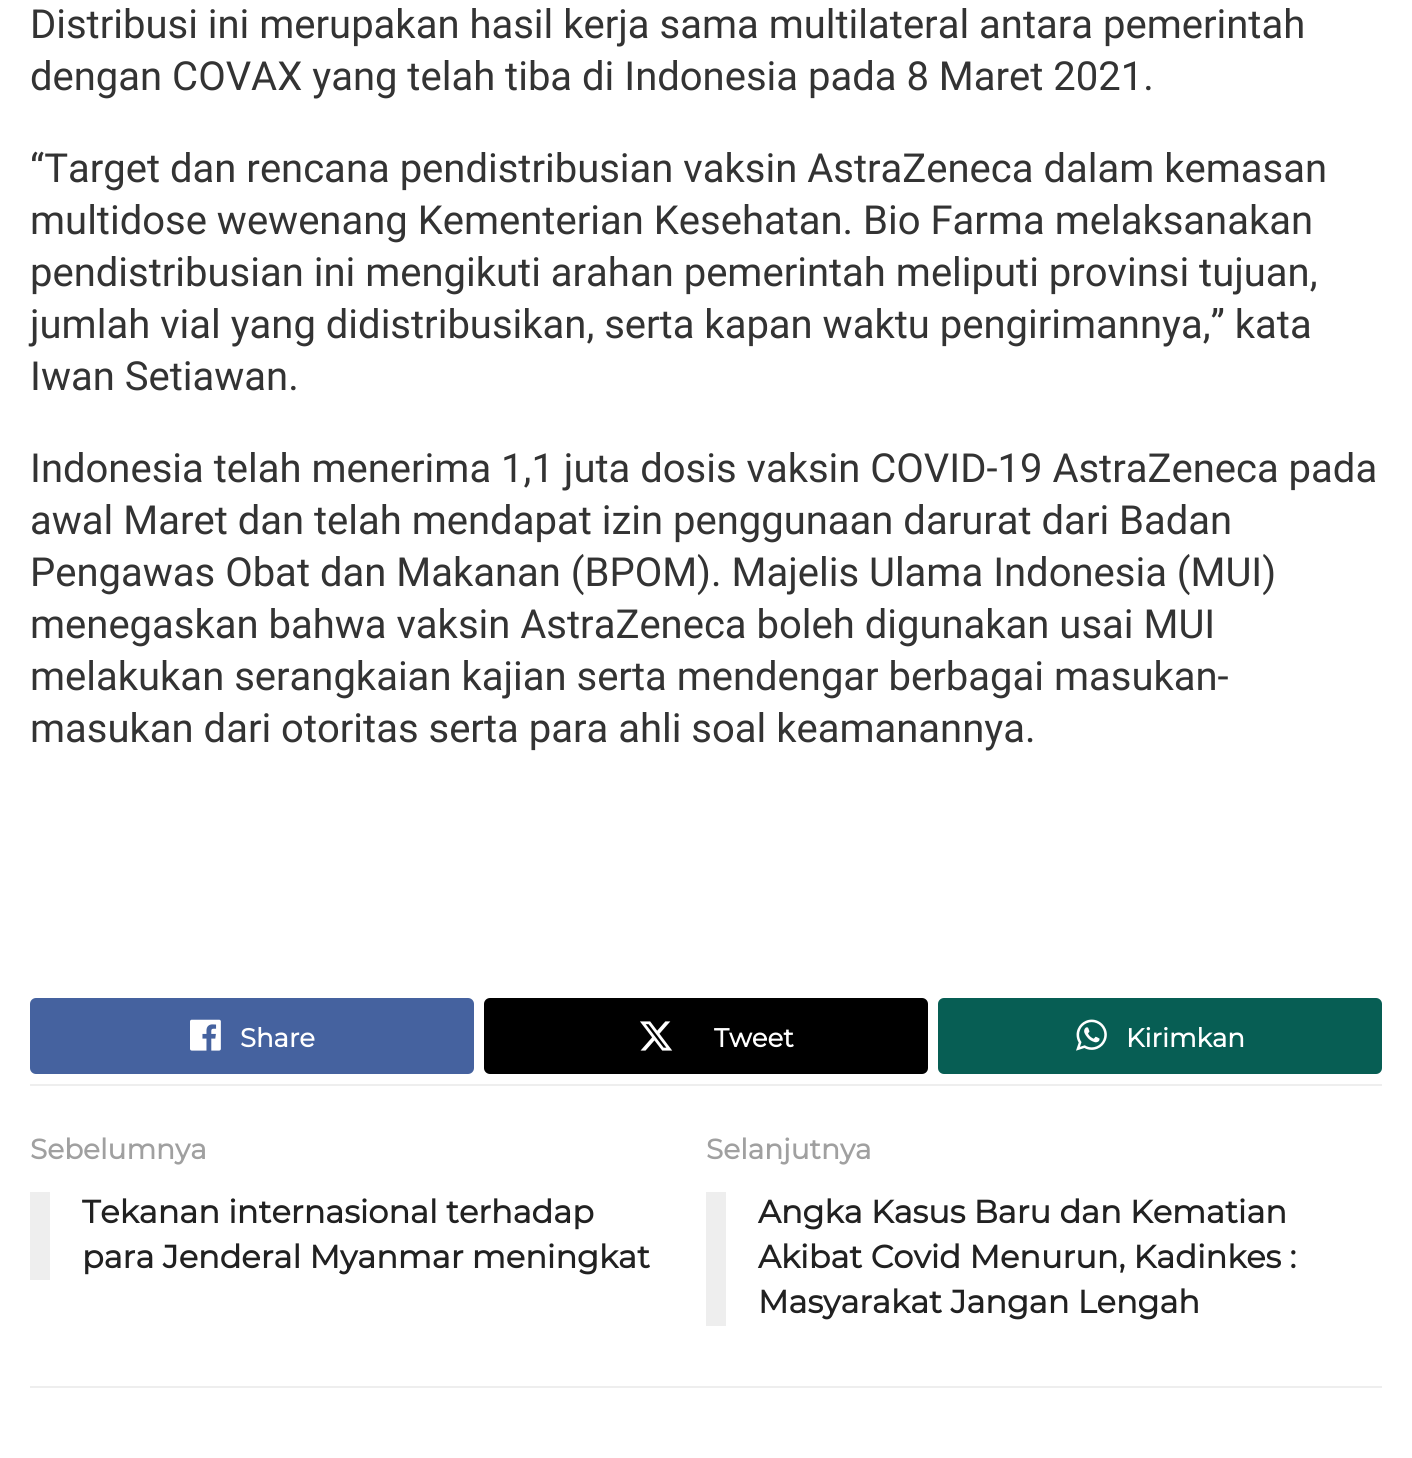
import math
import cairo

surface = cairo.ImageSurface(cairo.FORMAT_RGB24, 1412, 1458)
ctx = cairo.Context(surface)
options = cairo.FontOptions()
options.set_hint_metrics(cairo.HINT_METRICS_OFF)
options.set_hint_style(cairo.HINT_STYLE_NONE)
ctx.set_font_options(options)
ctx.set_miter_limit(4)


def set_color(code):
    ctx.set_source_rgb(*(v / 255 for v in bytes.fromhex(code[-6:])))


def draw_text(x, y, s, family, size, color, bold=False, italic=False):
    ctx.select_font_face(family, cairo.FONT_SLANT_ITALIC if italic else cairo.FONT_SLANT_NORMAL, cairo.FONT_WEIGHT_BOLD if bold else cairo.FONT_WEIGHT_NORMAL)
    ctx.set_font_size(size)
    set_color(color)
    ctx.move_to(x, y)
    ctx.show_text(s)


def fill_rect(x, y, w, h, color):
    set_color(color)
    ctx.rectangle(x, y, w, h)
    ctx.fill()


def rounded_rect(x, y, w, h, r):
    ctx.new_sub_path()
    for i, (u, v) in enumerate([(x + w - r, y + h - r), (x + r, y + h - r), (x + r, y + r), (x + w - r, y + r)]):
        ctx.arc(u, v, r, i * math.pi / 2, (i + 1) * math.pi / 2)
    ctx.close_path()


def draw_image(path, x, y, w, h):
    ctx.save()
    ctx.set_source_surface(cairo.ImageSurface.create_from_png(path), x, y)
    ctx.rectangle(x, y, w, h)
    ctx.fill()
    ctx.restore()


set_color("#ffffff")
ctx.paint()
draw_text(30, 38, "Distribusi ini merupakan hasil kerja sama multilateral antara pemerintah", "Roboto", 40, "#333333")
draw_text(30, 90, "dengan COVAX yang telah tiba di Indonesia pada 8 Maret 2021.", "Roboto", 40, "#333333")
draw_text(30, 182, "“Target dan rencana pendistribusian vaksin AstraZeneca dalam kemasan", "Roboto", 40, "#333333")
draw_text(30, 234, "multidose wewenang Kementerian Kesehatan. Bio Farma melaksanakan", "Roboto", 40, "#333333")
draw_text(30, 286, "pendistribusian ini mengikuti arahan pemerintah meliputi provinsi tujuan,", "Roboto", 40, "#333333")
draw_text(30, 338, "jumlah vial yang didistribusikan, serta kapan waktu pengirimannya,” kata", "Roboto", 40, "#333333")
draw_text(30, 390, "Iwan Setiawan.", "Roboto", 40, "#333333")
draw_text(30, 482, "Indonesia telah menerima 1,1 juta dosis vaksin COVID-19 AstraZeneca pada", "Roboto", 40, "#333333")
draw_text(30, 534, "awal Maret dan telah mendapat izin penggunaan darurat dari Badan", "Roboto", 40, "#333333")
draw_text(30, 586, "Pengawas Obat dan Makanan (BPOM). Majelis Ulama Indonesia (MUI)", "Roboto", 40, "#333333")
draw_text(30, 638, "menegaskan bahwa vaksin AstraZeneca boleh digunakan usai MUI", "Roboto", 40, "#333333")
draw_text(30, 690, "melakukan serangkaian kajian serta mendengar berbagai masukan-", "Roboto", 40, "#333333")
draw_text(30, 742, "masukan dari otoritas serta para ahli soal keamanannya.", "Roboto", 40, "#333333")
set_color("#45629f")
rounded_rect(30, 998, 444, 76, 6)
ctx.fill()
draw_image("assets/img1.png", 190, 1019, 31, 32)
draw_text(240, 1047, "Share", "Montserrat", 26, "#ffffff", bold=True)
set_color("#000000")
rounded_rect(484, 998, 444, 76, 6)
ctx.fill()
draw_image("assets/img2.png", 640, 1021, 33, 30)
draw_text(714, 1047, "Tweet", "Montserrat", 26, "#ffffff", bold=True)
set_color("#075e54")
rounded_rect(938, 998, 444, 76, 6)
ctx.fill()
draw_image("assets/img3.png", 1076, 1019, 31, 32)
draw_text(1126, 1047, "Kirimkan", "Montserrat", 26, "#ffffff", bold=True)
fill_rect(30, 1084, 1352, 2, "#eeeeee")
fill_rect(30, 1386, 1352, 2, "#eeeeee")
draw_text(30, 1159, "Sebelumnya", "Montserrat", 28, "#a0a0a0", bold=True)
fill_rect(30, 1192, 20, 88, "#eeeeee")
draw_text(82, 1223, "Tekanan internasional terhadap", "Montserrat", 32, "#212121", bold=True)
draw_text(82, 1268, "para Jenderal Myanmar meningkat", "Montserrat", 32, "#212121", bold=True)
draw_text(706, 1159, "Selanjutnya", "Montserrat", 28, "#a0a0a0", bold=True)
fill_rect(706, 1192, 20, 134, "#eeeeee")
draw_text(758, 1223, "Angka Kasus Baru dan Kematian", "Montserrat", 32, "#212121", bold=True)
draw_text(758, 1268, "Akibat Covid Menurun, Kadinkes :", "Montserrat", 32, "#212121", bold=True)
draw_text(758, 1313, "Masyarakat Jangan Lengah", "Montserrat", 32, "#212121", bold=True)
surface.write_to_png("output.png")
